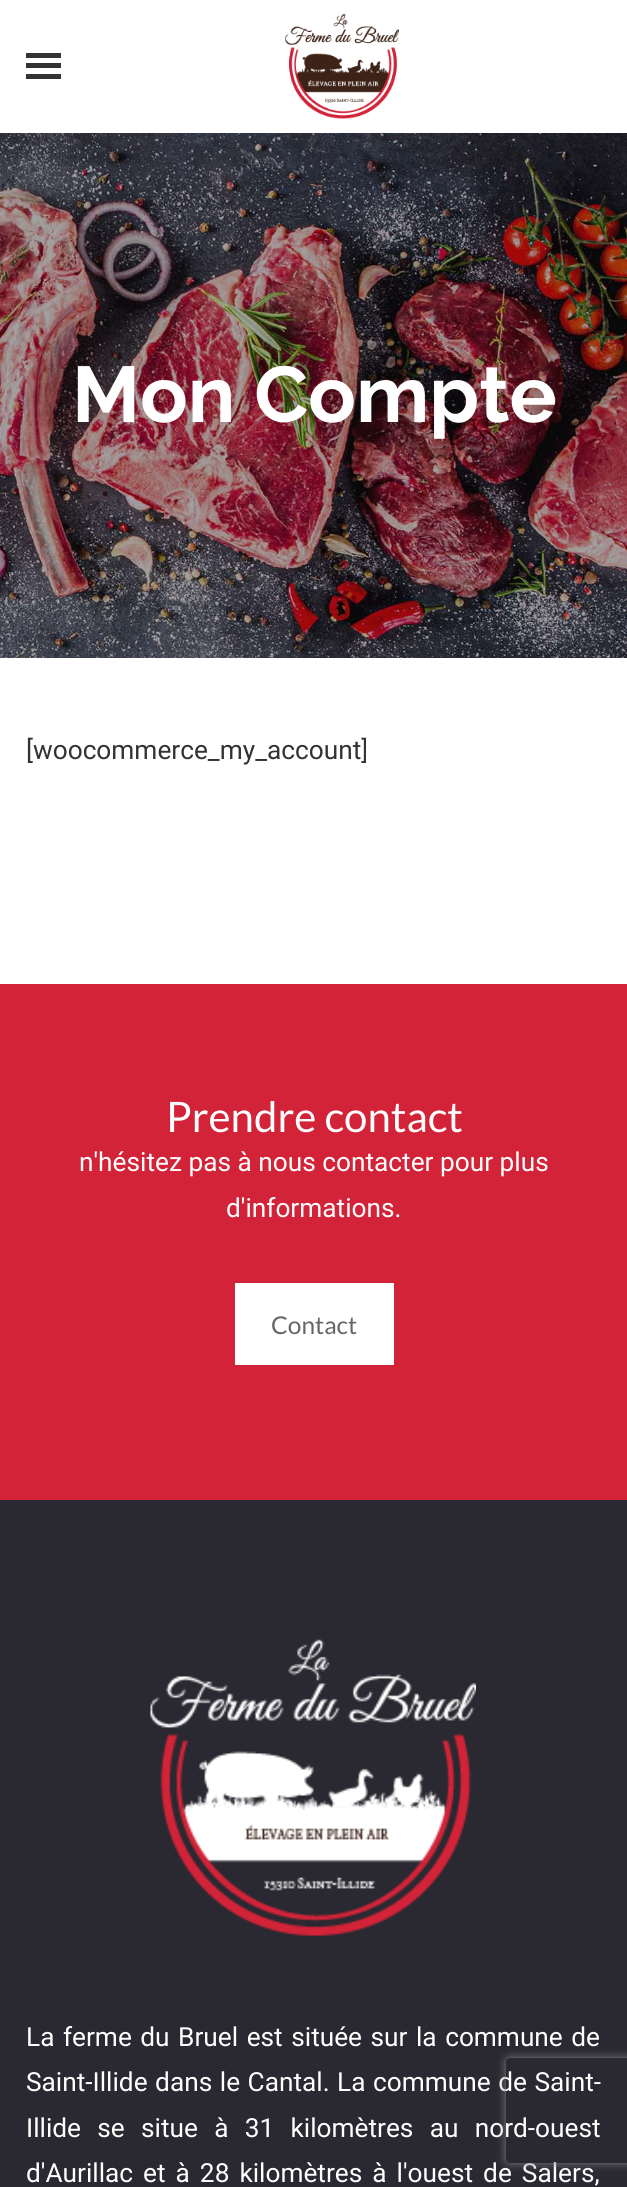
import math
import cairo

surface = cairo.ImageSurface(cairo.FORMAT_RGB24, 627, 2187)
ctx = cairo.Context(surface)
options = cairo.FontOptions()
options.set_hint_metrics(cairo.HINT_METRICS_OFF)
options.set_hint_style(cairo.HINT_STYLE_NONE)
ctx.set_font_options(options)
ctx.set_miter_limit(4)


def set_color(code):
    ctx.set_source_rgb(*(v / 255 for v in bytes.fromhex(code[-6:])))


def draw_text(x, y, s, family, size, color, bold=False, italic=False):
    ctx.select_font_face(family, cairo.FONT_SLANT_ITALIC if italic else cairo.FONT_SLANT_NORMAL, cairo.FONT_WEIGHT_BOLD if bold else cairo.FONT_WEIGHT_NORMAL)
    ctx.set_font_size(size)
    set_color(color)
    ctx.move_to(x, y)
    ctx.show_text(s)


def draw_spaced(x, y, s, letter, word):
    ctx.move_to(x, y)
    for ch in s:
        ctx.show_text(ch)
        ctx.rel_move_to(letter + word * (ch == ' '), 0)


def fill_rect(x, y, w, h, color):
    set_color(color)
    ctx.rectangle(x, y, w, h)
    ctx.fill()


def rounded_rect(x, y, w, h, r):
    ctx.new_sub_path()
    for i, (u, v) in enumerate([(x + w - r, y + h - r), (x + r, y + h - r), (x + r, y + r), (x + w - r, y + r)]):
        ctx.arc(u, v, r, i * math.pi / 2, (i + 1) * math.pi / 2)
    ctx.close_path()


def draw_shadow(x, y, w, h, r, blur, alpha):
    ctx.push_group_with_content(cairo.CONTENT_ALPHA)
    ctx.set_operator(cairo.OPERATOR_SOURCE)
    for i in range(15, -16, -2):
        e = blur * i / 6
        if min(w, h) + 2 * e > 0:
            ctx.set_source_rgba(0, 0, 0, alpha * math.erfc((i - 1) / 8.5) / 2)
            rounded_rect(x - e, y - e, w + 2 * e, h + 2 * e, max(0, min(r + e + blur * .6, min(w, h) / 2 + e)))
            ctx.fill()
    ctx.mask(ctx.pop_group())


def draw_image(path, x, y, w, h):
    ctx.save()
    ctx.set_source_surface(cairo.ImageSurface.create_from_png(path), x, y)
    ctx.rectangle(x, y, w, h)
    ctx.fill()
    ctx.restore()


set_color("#ffffff")
ctx.paint()
fill_rect(26, 53, 35, 5, "#333333")
fill_rect(26, 63, 35, 5, "#333333")
fill_rect(26, 74, 35, 5, "#333333")
draw_image("assets/img1.png", 285, 14, 114, 105)
draw_image("assets/img2.png", 0, 133, 627, 525)
draw_text(72, 422, "Mon Compte", "Raleway", 78.75, "#ffffff", bold=True)
draw_text(26, 759, "[woocommerce_my_account]", "Roboto", 26.25, "#333333")
fill_rect(0, 984, 627, 516, "#d32338")
draw_text(166, 1132, "Prendre contact", "Lato", 42, "#ffffff")
draw_text(79, 1171, "n'hésitez pas à nous contacter pour plus", "Roboto", 26.25, "#ffffff")
draw_text(226, 1217, "d'informations.", "Roboto", 26.25, "#ffffff")
fill_rect(235, 1283, 159, 82, "#ffffff")
draw_text(271, 1334, "Contact", "Lato", 24.5, "#666666")
fill_rect(0, 1500, 627, 687, "#2a2931")
draw_image("assets/img3.png", 150, 1639, 326, 297)
ctx.select_font_face("Roboto")
ctx.set_font_size(26.25)
set_color("#ffffff")
draw_spaced(26, 2046, "La ferme du Bruel est située sur la commune de", 0, 2)
draw_spaced(26, 2091, "Saint-Illide dans le Cantal. La commune de Saint-", 0, 1)
draw_spaced(26, 2137, "Illide se situe à 31 kilomètres au nord-ouest", 0, 9.75)
draw_spaced(26, 2182, "d'Aurillac et à 28 kilomètres à l'ouest de Salers,", 0, 3.5)
ctx.save()
ctx.set_fill_rule(cairo.FILL_RULE_EVEN_ODD)
ctx.new_path()
ctx.move_to(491, 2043)
ctx.line_to(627, 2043)
ctx.line_to(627, 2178)
ctx.line_to(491, 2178)
ctx.close_path()
ctx.move_to(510, 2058)
ctx.line_to(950, 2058)
ctx.curve_to(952, 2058, 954, 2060, 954, 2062)
ctx.line_to(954, 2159)
ctx.curve_to(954, 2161, 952, 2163, 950, 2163)
ctx.line_to(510, 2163)
ctx.curve_to(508, 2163, 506, 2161, 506, 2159)
ctx.line_to(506, 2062)
ctx.curve_to(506, 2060, 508, 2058, 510, 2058)
ctx.close_path()
ctx.clip()
set_color("#808080")
draw_shadow(506, 2058, 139, 105, 4, 4.5, 1)
ctx.restore()
surface.write_to_png("output.png")
